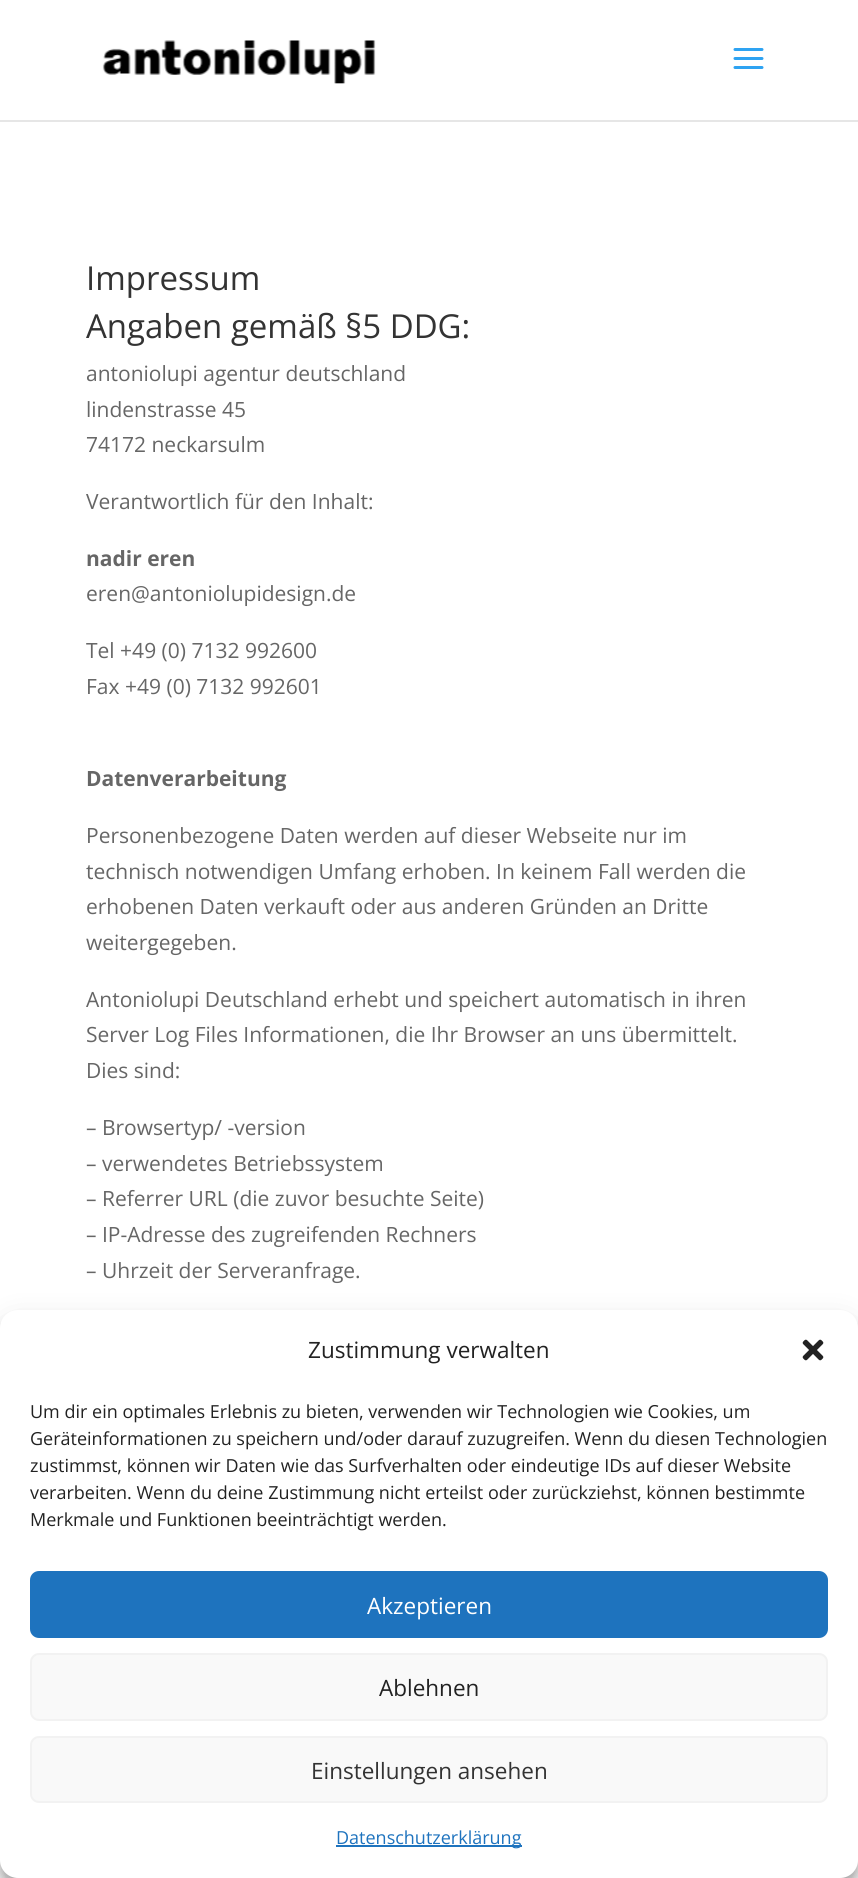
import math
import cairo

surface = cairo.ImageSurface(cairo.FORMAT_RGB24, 858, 1878)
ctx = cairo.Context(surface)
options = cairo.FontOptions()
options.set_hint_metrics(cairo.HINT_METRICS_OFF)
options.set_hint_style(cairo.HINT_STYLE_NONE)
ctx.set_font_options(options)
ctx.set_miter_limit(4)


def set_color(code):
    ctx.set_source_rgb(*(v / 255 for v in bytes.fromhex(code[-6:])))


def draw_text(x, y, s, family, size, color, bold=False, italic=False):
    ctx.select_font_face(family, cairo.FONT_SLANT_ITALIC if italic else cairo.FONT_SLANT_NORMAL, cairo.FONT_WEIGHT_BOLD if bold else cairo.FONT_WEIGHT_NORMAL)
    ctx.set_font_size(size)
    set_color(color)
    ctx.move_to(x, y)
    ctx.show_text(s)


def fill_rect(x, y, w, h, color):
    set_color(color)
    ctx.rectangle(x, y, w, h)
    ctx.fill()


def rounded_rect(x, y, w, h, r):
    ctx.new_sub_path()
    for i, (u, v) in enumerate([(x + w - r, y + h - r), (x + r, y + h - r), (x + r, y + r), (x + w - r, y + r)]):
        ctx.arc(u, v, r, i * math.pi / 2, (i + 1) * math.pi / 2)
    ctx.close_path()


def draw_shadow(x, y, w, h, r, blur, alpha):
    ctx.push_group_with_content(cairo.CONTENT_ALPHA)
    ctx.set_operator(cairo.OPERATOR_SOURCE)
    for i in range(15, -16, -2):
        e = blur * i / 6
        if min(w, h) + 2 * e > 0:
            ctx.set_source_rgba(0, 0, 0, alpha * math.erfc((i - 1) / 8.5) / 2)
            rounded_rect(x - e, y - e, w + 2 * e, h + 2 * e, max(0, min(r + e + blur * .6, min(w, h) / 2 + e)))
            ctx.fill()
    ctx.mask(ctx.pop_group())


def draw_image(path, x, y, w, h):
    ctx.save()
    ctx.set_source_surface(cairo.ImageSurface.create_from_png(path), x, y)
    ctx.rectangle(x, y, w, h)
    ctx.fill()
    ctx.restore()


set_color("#ffffff")
ctx.paint()
fill_rect(0, 120, 858, 2, "#e6e6e6")
draw_image("assets/img1.png", 102, 40, 274, 44)
draw_image("assets/img2.png", 733, 48, 31, 21)
draw_text(86, 290, "Impressum", "Open Sans", 33, "#333333")
draw_text(86, 338, "Angaben gemäß §5 DDG:", "Open Sans", 33, "#333333")
draw_text(86, 381, "antoniolupi agentur deutschland", "Open Sans", 21, "#666666")
draw_text(86, 417, "lindenstrasse 45", "Open Sans", 21, "#666666")
draw_text(86, 452, "74172 neckarsulm", "Open Sans", 21, "#666666")
draw_text(86, 509, "Verantwortlich für den Inhalt:", "Open Sans", 21, "#666666")
draw_text(86, 566, "nadir eren", "Open Sans", 21, "#666666", bold=True)
draw_text(86, 601, "eren@antoniolupidesign.de", "Open Sans", 21, "#666666")
draw_text(86, 658, "Tel +49 (0) 7132 992600", "Open Sans", 21, "#666666")
draw_text(86, 694, "Fax +49 (0) 7132 992601", "Open Sans", 21, "#666666")
draw_text(86, 786, "Datenverarbeitung", "Open Sans", 21, "#666666", bold=True)
draw_text(86, 843, "Personenbezogene Daten werden auf dieser Webseite nur im", "Open Sans", 21, "#666666")
draw_text(86, 879, "technisch notwendigen Umfang erhoben. In keinem Fall werden die", "Open Sans", 21, "#666666")
draw_text(86, 914, "erhobenen Daten verkauft oder aus anderen Gründen an Dritte", "Open Sans", 21, "#666666")
draw_text(86, 950, "weitergegeben.", "Open Sans", 21, "#666666")
draw_text(86, 1007, "Antoniolupi Deutschland erhebt und speichert automatisch in ihren", "Open Sans", 21, "#666666")
draw_text(86, 1042, "Server Log Files Informationen, die Ihr Browser an uns übermittelt.", "Open Sans", 21, "#666666")
draw_text(86, 1078, "Dies sind:", "Open Sans", 21, "#666666")
draw_text(86, 1135, "– Browsertyp/ -version", "Open Sans", 21, "#666666")
draw_text(86, 1171, "– verwendetes Betriebssystem", "Open Sans", 21, "#666666")
draw_text(86, 1206, "– Referrer URL (die zuvor besuchte Seite)", "Open Sans", 21, "#666666")
draw_text(86, 1242, "– IP-Adresse des zugreifenden Rechners", "Open Sans", 21, "#666666")
draw_text(86, 1278, "– Uhrzeit der Serveranfrage.", "Open Sans", 21, "#666666")
set_color("#000000")
draw_shadow(0, 1319, 858, 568, 18, 4.5, 0.23)
draw_shadow(0, 1325, 858, 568, 18, 15, 0.19)
set_color("#ffffff")
rounded_rect(0, 1310, 858, 568, 18)
ctx.fill()
draw_text(308, 1358, "Zustimmung verwalten", "Open Sans", 22.5, "#222222")
draw_image("assets/img3.png", 802, 1339, 22, 22)
draw_text(30, 1418, "Um dir ein optimales Erlebnis zu bieten, verwenden wir Technologien wie Cookies, um", "Open Sans", 18, "#222222")
draw_text(30, 1445, "Geräteinformationen zu speichern und/oder darauf zuzugreifen. Wenn du diesen Technologien", "Open Sans", 18, "#222222")
draw_text(30, 1472, "zustimmst, können wir Daten wie das Surfverhalten oder eindeutige IDs auf dieser Website", "Open Sans", 18, "#222222")
draw_text(30, 1499, "verarbeiten. Wenn du deine Zustimmung nicht erteilst oder zurückziehst, können bestimmte", "Open Sans", 18, "#222222")
draw_text(30, 1526, "Merkmale und Funktionen beeinträchtigt werden.", "Open Sans", 18, "#222222")
set_color("#1e73be")
rounded_rect(31, 1572, 796, 65, 8)
ctx.fill_preserve()
ctx.stroke()
draw_text(367, 1614, "Akzeptieren", "Open Sans", 22.5, "#ffffff")
set_color("#f9f9f9")
rounded_rect(31, 1654, 796, 66, 8)
ctx.fill_preserve()
set_color("#f2f2f2")
ctx.stroke()
draw_text(379, 1696, "Ablehnen", "Open Sans", 22.5, "#222222")
set_color("#f9f9f9")
rounded_rect(31, 1737, 796, 65, 8)
ctx.fill_preserve()
set_color("#f2f2f2")
ctx.stroke()
draw_text(311, 1779, "Einstellungen ansehen", "Open Sans", 22.5, "#333333")
fill_rect(336, 1845, 186, 2, "#1e73be")
draw_text(336, 1844, "Datenschutzerklärung", "Open Sans", 18, "#1e73be")
surface.write_to_png("output.png")
